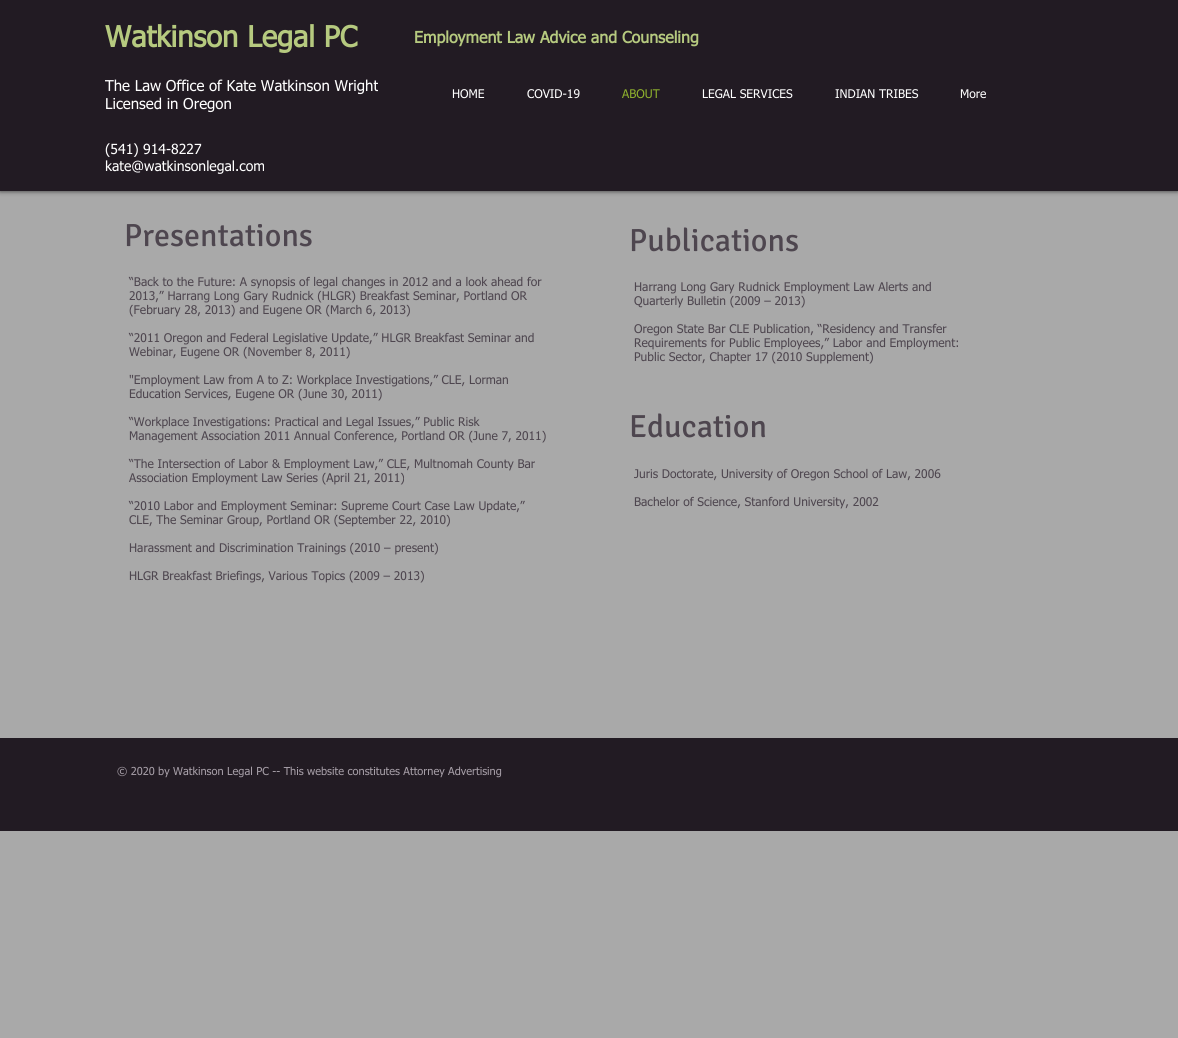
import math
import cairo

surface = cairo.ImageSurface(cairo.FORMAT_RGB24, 1178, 1038)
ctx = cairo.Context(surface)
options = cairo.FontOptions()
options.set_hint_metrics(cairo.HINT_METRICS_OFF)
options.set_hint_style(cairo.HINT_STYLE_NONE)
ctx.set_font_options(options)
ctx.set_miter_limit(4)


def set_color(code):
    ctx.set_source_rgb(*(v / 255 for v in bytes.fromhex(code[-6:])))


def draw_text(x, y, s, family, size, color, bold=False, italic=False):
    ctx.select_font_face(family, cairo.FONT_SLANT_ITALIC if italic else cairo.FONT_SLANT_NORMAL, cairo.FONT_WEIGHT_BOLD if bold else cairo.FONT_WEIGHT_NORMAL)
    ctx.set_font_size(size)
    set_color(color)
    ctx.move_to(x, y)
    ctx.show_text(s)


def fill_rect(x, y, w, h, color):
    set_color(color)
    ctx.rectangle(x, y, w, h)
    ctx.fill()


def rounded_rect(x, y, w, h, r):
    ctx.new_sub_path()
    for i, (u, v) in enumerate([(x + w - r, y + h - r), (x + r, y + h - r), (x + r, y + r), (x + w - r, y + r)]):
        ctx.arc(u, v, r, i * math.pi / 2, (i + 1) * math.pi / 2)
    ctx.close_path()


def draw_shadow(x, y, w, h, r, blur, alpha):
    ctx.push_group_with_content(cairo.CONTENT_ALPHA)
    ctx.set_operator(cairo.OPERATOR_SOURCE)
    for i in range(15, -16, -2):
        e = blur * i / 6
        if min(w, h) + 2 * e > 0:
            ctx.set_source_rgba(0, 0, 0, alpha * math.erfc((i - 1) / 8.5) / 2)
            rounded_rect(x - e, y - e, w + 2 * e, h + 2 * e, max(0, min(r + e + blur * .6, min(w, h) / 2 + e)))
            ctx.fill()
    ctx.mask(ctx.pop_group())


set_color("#a9a9a9")
ctx.paint()
set_color("#000000")
draw_shadow(0, 0, 1178, 191, 0, 2.5, 0.7)
fill_rect(0, 0, 1178, 191, "#221b23")
draw_text(105, 47, "Watkinson Legal PC", "tahoma", 29, "#b6ca7f", bold=True)
draw_text(414, 43, "Employment Law Advice and Counseling", "tahoma", 16, "#b6ca7f", bold=True)
draw_text(105, 91, "The Law Office of Kate Watkinson Wright", "tahoma", 15, "#ffffff")
draw_text(105, 109, "Licensed in Oregon", "tahoma", 15, "#ffffff")
draw_text(105, 154, "(541) 914-8227", "tahoma", 14, "#ffffff")
draw_text(105, 171, "kate@watkinsonlegal.com", "tahoma", 14, "#ffffff")
draw_text(452, 98, "HOME", "tahoma", 12, "#ffffff")
draw_text(527, 98, "COVID-19", "tahoma", 12, "#ffffff")
draw_text(622, 98, "ABOUT", "tahoma", 12, "#8daf2d")
draw_text(702, 98, "LEGAL SERVICES", "tahoma", 12, "#ffffff")
draw_text(835, 98, "INDIAN TRIBES", "tahoma", 12, "#ffffff")
draw_text(960, 98, "More", "tahoma", 12, "#ffffff")
draw_text(124, 246, "Presentations", "Signika", 32, "#4e464f")
draw_text(629, 251, "Publications", "Signika", 32, "#4e464f")
draw_text(129, 286, "“Back to the Future: A synopsis of legal changes in 2012 and a look ahead for", "tahoma", 12, "#4e464f")
draw_text(129, 300, "2013,” Harrang Long Gary Rudnick (HLGR) Breakfast Seminar, Portland OR", "tahoma", 12, "#4e464f")
draw_text(129, 314, "(February 28, 2013) and Eugene OR (March 6, 2013)", "tahoma", 12, "#4e464f")
draw_text(129, 342, "“2011 Oregon and Federal Legislative Update,” HLGR Breakfast Seminar and", "tahoma", 12, "#4e464f")
draw_text(129, 356, "Webinar, Eugene OR (November 8, 2011)", "tahoma", 12, "#4e464f")
draw_text(129, 384, "\"Employment Law from A to Z: Workplace Investigations,” CLE, Lorman", "tahoma", 12, "#4e464f")
draw_text(129, 398, "Education Services, Eugene OR (June 30, 2011)", "tahoma", 12, "#4e464f")
draw_text(129, 426, "“Workplace Investigations: Practical and Legal Issues,” Public Risk", "tahoma", 12, "#4e464f")
draw_text(129, 440, "Management Association 2011 Annual Conference, Portland OR (June 7, 2011)", "tahoma", 12, "#4e464f")
draw_text(129, 468, "“The Intersection of Labor & Employment Law,” CLE, Multnomah County Bar", "tahoma", 12, "#4e464f")
draw_text(129, 482, "Association Employment Law Series (April 21, 2011)", "tahoma", 12, "#4e464f")
draw_text(129, 510, "“2010 Labor and Employment Seminar: Supreme Court Case Law Update,”", "tahoma", 12, "#4e464f")
draw_text(129, 524, "CLE, The Seminar Group, Portland OR (September 22, 2010)", "tahoma", 12, "#4e464f")
draw_text(129, 552, "Harassment and Discrimination Trainings (2010 – present)", "tahoma", 12, "#4e464f")
draw_text(129, 580, "HLGR Breakfast Briefings, Various Topics (2009 – 2013)", "tahoma", 12, "#4e464f")
draw_text(634, 291, "Harrang Long Gary Rudnick Employment Law Alerts and", "tahoma", 12, "#4e464f")
draw_text(634, 305, "Quarterly Bulletin (2009 – 2013)", "tahoma", 12, "#4e464f")
draw_text(634, 333, "Oregon State Bar CLE Publication, “Residency and Transfer", "tahoma", 12, "#4e464f")
draw_text(634, 347, "Requirements for Public Employees,” Labor and Employment:", "tahoma", 12, "#4e464f")
draw_text(634, 361, "Public Sector, Chapter 17 (2010 Supplement)", "tahoma", 12, "#4e464f")
draw_text(629, 437, "Education", "Signika", 32, "#4e464f")
draw_text(634, 478, "Juris Doctorate, University of Oregon School of Law, 2006", "tahoma", 12, "#4e464f")
draw_text(634, 506, "Bachelor of Science, Stanford University, 2002", "tahoma", 12, "#4e464f")
fill_rect(0, 738, 1178, 93, "#221b23")
draw_text(117, 775, "© 2020 by Watkinson Legal PC -- This website constitutes Attorney Advertising", "tahoma", 11, "#a69ea7")
surface.write_to_png("output.png")
